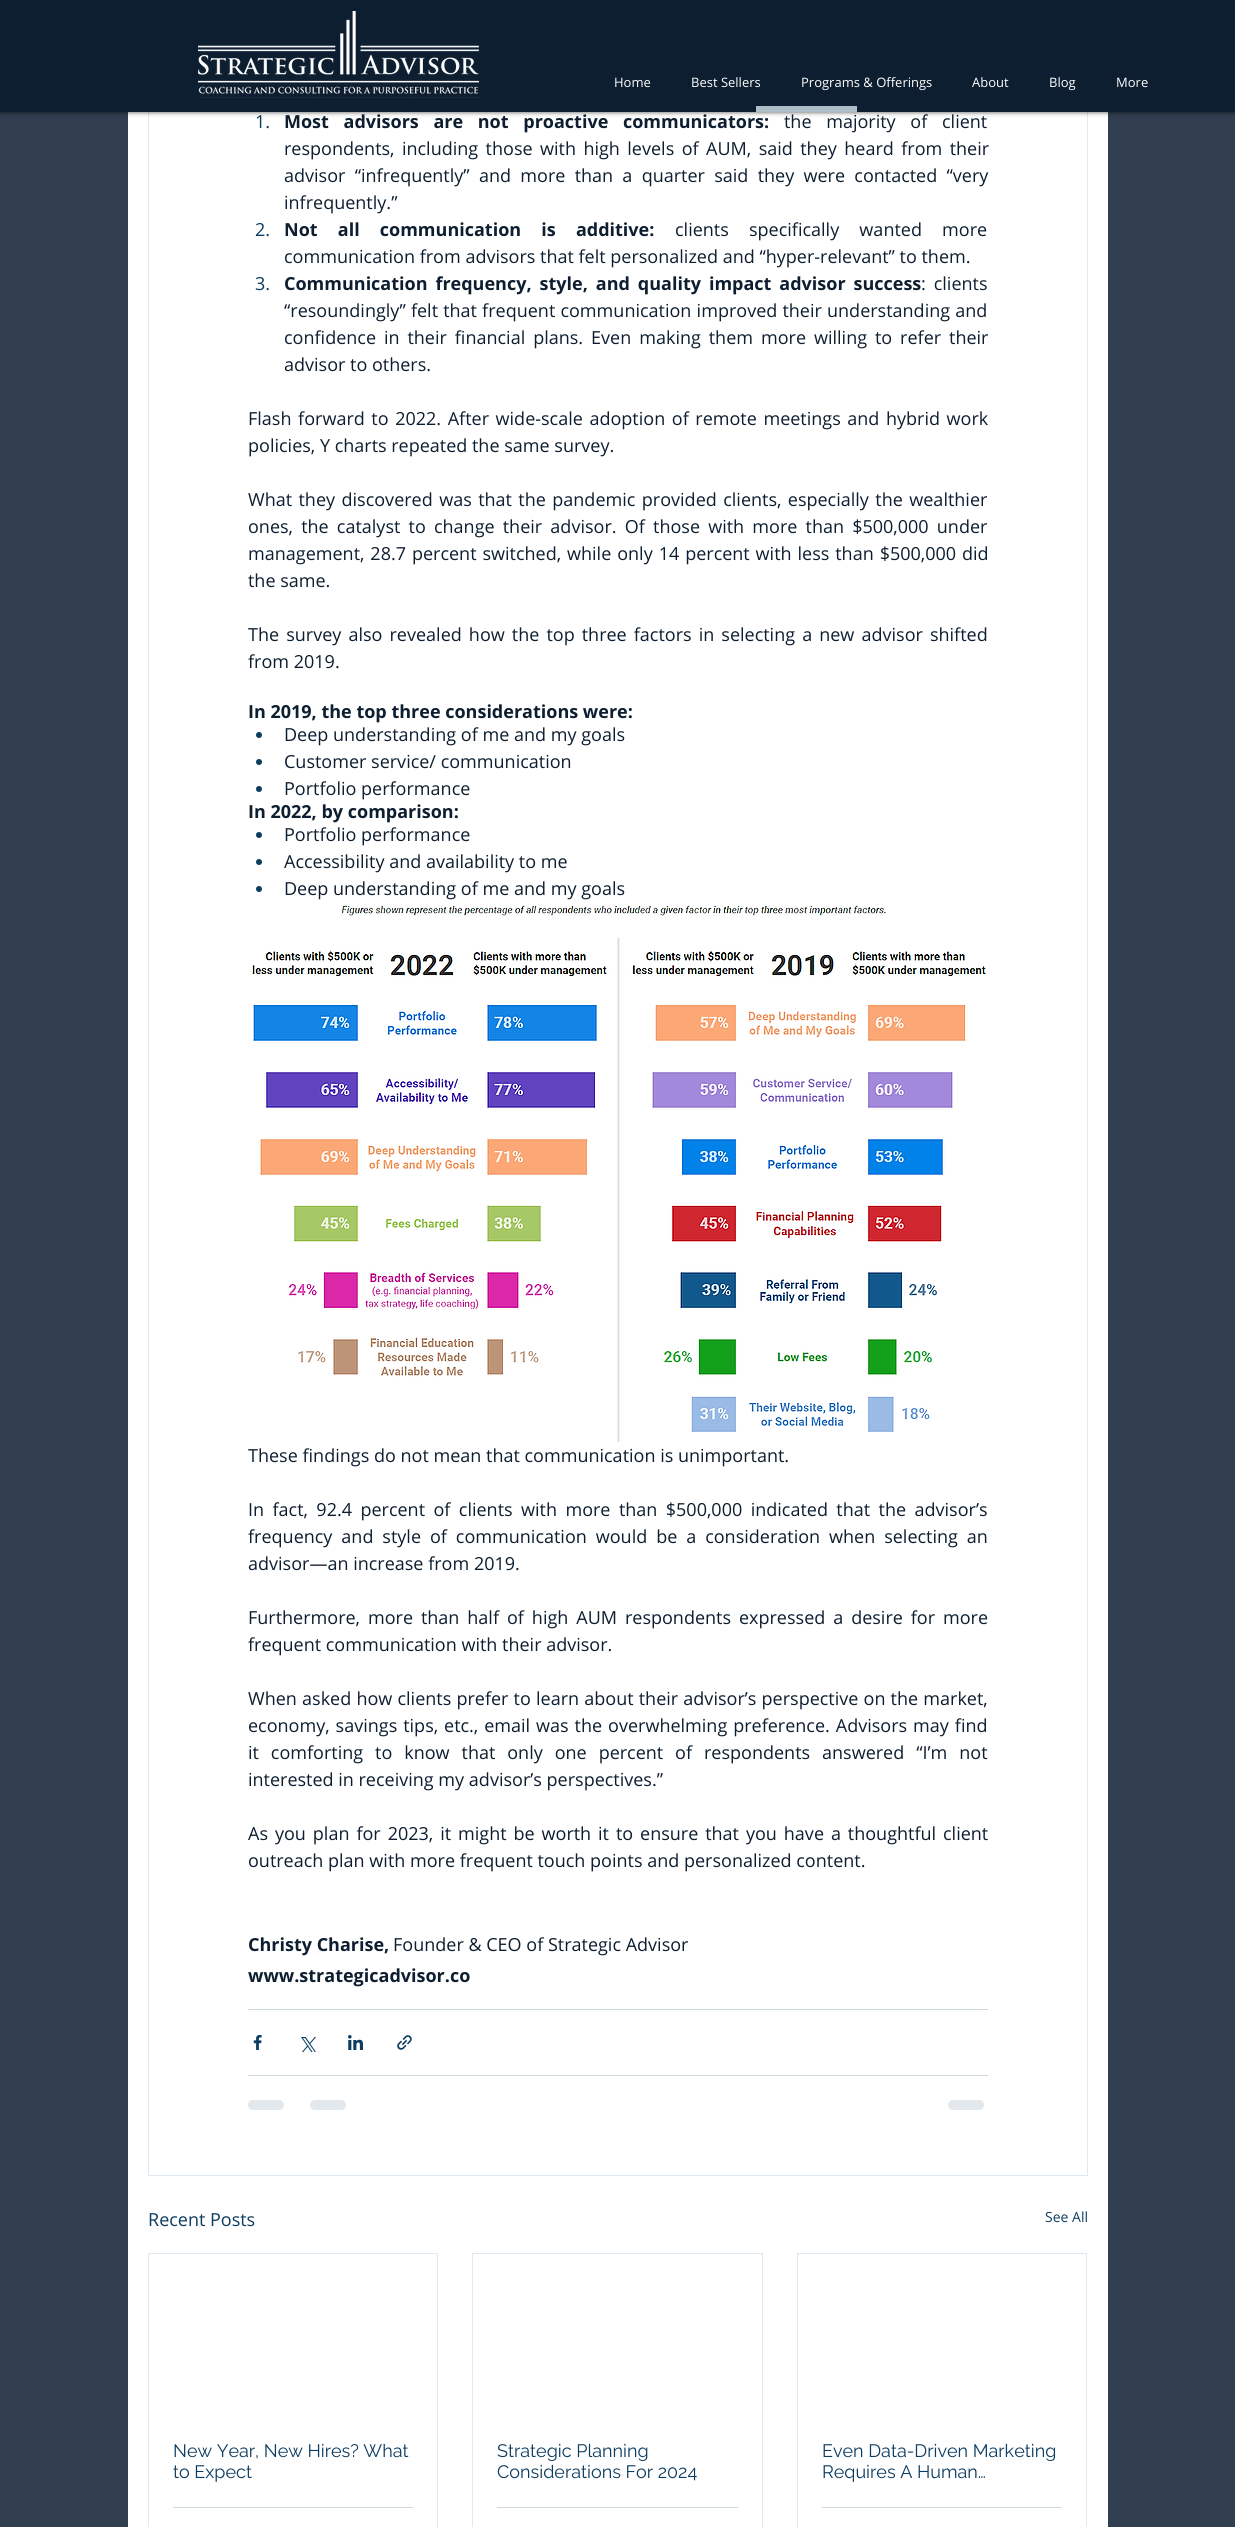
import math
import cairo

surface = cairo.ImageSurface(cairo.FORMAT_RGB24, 1235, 2527)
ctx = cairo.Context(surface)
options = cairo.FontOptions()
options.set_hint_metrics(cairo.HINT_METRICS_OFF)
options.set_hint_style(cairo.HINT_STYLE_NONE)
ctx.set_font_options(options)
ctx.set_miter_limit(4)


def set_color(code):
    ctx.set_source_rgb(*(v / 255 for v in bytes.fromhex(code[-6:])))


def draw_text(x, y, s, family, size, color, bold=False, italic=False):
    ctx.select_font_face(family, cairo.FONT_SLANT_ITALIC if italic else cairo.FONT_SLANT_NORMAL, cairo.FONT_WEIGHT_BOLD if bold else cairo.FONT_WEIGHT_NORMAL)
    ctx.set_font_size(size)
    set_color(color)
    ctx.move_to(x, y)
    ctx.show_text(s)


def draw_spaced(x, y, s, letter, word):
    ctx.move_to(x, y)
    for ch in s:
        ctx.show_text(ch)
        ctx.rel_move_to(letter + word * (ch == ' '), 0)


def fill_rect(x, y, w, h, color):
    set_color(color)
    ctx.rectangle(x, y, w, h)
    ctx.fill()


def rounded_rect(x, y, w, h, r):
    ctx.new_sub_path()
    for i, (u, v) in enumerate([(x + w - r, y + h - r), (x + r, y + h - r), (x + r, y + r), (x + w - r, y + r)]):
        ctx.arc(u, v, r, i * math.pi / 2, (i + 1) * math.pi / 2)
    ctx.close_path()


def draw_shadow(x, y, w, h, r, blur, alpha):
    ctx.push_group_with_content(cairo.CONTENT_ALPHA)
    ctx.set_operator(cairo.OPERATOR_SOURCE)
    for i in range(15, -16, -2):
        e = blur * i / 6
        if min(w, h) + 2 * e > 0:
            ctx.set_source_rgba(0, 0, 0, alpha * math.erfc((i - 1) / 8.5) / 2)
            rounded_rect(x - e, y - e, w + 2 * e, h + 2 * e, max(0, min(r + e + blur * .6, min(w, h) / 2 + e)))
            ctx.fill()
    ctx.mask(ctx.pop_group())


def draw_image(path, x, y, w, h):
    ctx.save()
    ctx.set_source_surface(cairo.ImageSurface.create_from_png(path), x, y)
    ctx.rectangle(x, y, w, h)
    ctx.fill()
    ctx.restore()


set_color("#313e4f")
ctx.paint()
fill_rect(128, 112, 980, 2415, "#ffffff")
ctx.rectangle(148.5, -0.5, 939, 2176)
set_color("#dde8f0")
ctx.set_line_width(1)
ctx.stroke()
set_color("#000000")
draw_shadow(0, 0, 1235, 112, 0, 2.5, 0.7)
fill_rect(0, 0, 1235, 112, "#0d1e30")
draw_image("assets/img1.png", 198, 11, 281, 87)
draw_text(614, 87, "Home", "Open Sans", 13, "#ffffff")
draw_text(691, 87, "Best Sellers", "Open Sans", 13, "#ffffff")
draw_text(801, 87, "Programs & Offerings", "Open Sans", 13, "#ffffff")
draw_text(972, 87, "About", "Open Sans", 13, "#ffffff")
draw_text(1049, 87, "Blog", "Open Sans", 13, "#ffffff")
draw_text(1116, 87, "More", "Open Sans", 13, "#ffffff")
fill_rect(756, 106, 101, 6, "#adbec6")
draw_text(255, 128, "1.", "Open Sans", 18, "#0c3c60")
ctx.select_font_face("Open Sans", cairo.FONT_SLANT_NORMAL, cairo.FONT_WEIGHT_BOLD)
set_color("#0d1e30")
draw_spaced(284, 128, "Most advisors are not proactive communicators:", 0, 10)
ctx.select_font_face("Open Sans")
draw_spaced(784, 128, "the majority of client", 0, 10)
draw_spaced(284, 155, "respondents, including those with high levels of AUM, said they heard from their", 0, 2.75)
draw_spaced(284, 182, "advisor “infrequently” and more than a quarter said they were contacted “very", 0, 4.6)
draw_text(284, 209, "infrequently.”", "Open Sans", 18, "#0d1e30")
draw_text(255, 236, "2.", "Open Sans", 18, "#0c3c60")
ctx.select_font_face("Open Sans", cairo.FONT_SLANT_NORMAL, cairo.FONT_WEIGHT_BOLD)
set_color("#0d1e30")
draw_spaced(284, 236, "Not all communication is additive:", 0, 15.5)
ctx.select_font_face("Open Sans")
draw_spaced(675, 236, "clients specifically wanted more", 0, 15.5)
draw_text(284, 263, "communication from advisors that felt personalized and “hyper-relevant” to them.", "Open Sans", 18, "#0d1e30")
draw_text(255, 290, "3.", "Open Sans", 18, "#0c3c60")
ctx.select_font_face("Open Sans", cairo.FONT_SLANT_NORMAL, cairo.FONT_WEIGHT_BOLD)
set_color("#0d1e30")
draw_spaced(284, 290, "Communication frequency, style, and quality impact advisor success", 0, 3.25)
ctx.select_font_face("Open Sans")
draw_spaced(921, 290, ": clients", 0, 3.25)
draw_spaced(284, 317, "“resoundingly” felt that frequent communication improved their understanding and", 0, 0.5)
draw_spaced(284, 344, "confidence in their financial plans. Even making them more willing to refer their", 0, 3.25)
draw_text(284, 371, "advisor to others.", "Open Sans", 18, "#0d1e30")
draw_spaced(248, 425, "Flash forward to 2022. After wide-scale adoption of remote meetings and hybrid work", 0, 1.9)
draw_text(248, 452, "policies, Y charts repeated the same survey.", "Open Sans", 18, "#0d1e30")
draw_spaced(248, 506, "What they discovered was that the pandemic provided clients, especially the wealthier", 0, 1.75)
draw_spaced(248, 533, "ones, the catalyst to change their advisor. Of those with more than $500,000 under", 0, 3.5)
draw_spaced(248, 560, "management, 28.7 percent switched, while only 14 percent with less than $500,000 did", 0, 1.25)
draw_text(248, 587, "the same.", "Open Sans", 18, "#0d1e30")
draw_spaced(248, 641, "The survey also revealed how the top three factors in selecting a new advisor shifted", 0, 2.4)
draw_text(248, 668, "from 2019.", "Open Sans", 18, "#0d1e30")
draw_text(248, 718, "In 2019, the top three considerations were:", "Open Sans", 18, "#0d1e30", bold=True)
set_color("#0c3c60")
ctx.new_path()
ctx.arc(259, 735, 3, 0, 2 * math.pi)
ctx.fill()
draw_text(284, 741, "Deep understanding of me and my goals", "Open Sans", 18, "#0d1e30")
set_color("#0c3c60")
ctx.new_path()
ctx.arc(259, 762, 3, 0, 2 * math.pi)
ctx.fill()
draw_text(284, 768, "Customer service/ communication", "Open Sans", 18, "#0d1e30")
set_color("#0c3c60")
ctx.new_path()
ctx.arc(259, 789, 3, 0, 2 * math.pi)
ctx.fill()
draw_text(284, 795, "Portfolio performance", "Open Sans", 18, "#0d1e30")
draw_text(248, 818, "In 2022, by comparison:", "Open Sans", 18, "#0d1e30", bold=True)
set_color("#0c3c60")
ctx.new_path()
ctx.arc(259, 835, 3, 0, 2 * math.pi)
ctx.fill()
draw_text(284, 841, "Portfolio performance", "Open Sans", 18, "#0d1e30")
set_color("#0c3c60")
ctx.new_path()
ctx.arc(259, 862, 3, 0, 2 * math.pi)
ctx.fill()
draw_text(284, 868, "Accessibility and availability to me", "Open Sans", 18, "#0d1e30")
set_color("#0c3c60")
ctx.new_path()
ctx.arc(259, 889, 3, 0, 2 * math.pi)
ctx.fill()
draw_text(284, 895, "Deep understanding of me and my goals", "Open Sans", 18, "#0d1e30")
draw_image("assets/img2.png", 252, 905, 736, 537)
draw_text(248, 1462, "These findings do not mean that communication is unimportant.", "Open Sans", 18, "#0d1e30")
draw_spaced(248, 1516, "In fact, 92.4 percent of clients with more than $500,000 indicated that the advisor’s", 0, 3.75)
draw_spaced(248, 1543, "frequency and style of communication would be a consideration when selecting an", 0, 4.25)
draw_text(248, 1570, "advisor—an increase from 2019.", "Open Sans", 18, "#0d1e30")
draw_spaced(248, 1624, "Furthermore, more than half of high AUM respondents expressed a desire for more", 0, 3.25)
draw_text(248, 1651, "frequent communication with their advisor.", "Open Sans", 18, "#0d1e30")
draw_spaced(248, 1705, "When asked how clients prefer to learn about their advisor’s perspective on the market,", 0, 0.5)
draw_spaced(248, 1732, "economy, savings tips, etc., email was the overwhelming preference. Advisors may find", 0, 1.25)
draw_spaced(248, 1759, "it comforting to know that only one percent of respondents answered “I’m not", 0, 7.25)
draw_text(248, 1786, "interested in receiving my advisor’s perspectives.”", "Open Sans", 18, "#0d1e30")
draw_spaced(248, 1840, "As you plan for 2023, it might be worth it to ensure that you have a thoughtful client", 0, 2.25)
draw_text(248, 1867, "outreach plan with more frequent touch points and personalized content.", "Open Sans", 18, "#0d1e30")
draw_text(248, 1951, "Christy Charise,", "Open Sans", 18, "#0d1e30", bold=True)
draw_text(393, 1951, "Founder & CEO of Strategic Advisor", "Open Sans", 18, "#0d1e30")
draw_text(248, 1982, "www.strategicadvisor.co", "Open Sans", 18, "#0d1e30", bold=True)
fill_rect(248, 2009, 740, 1, "#ced8df")
draw_image("assets/img3.png", 253, 2035, 9, 15)
draw_image("assets/img4.png", 301, 2037, 15, 15)
draw_image("assets/img5.png", 348, 2035, 15, 15)
draw_image("assets/img6.png", 397, 2035, 15, 15)
fill_rect(248, 2075, 740, 1, "#ced8df")
set_color("#e2e8ec")
rounded_rect(248, 2100, 36, 10, 5)
ctx.fill()
rounded_rect(310, 2100, 36, 10, 5)
ctx.fill()
rounded_rect(948, 2100, 36, 10, 5)
ctx.fill()
draw_text(148, 2226, "Recent Posts", "Open Sans", 18, "#0c3c60")
draw_text(1045, 2222, "See All", "Open Sans", 14, "#0c3c60")
ctx.rectangle(148.5, 2253.5, 289, 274)
set_color("#dde8f0")
ctx.stroke()
draw_text(173, 2457, "New Year, New Hires? What", "Raleway", 18, "#0c3c60")
draw_text(173, 2478, "to Expect", "Raleway", 18, "#0c3c60")
fill_rect(173, 2507, 240, 1, "#ced8df")
ctx.rectangle(472.5, 2253.5, 290, 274)
set_color("#dde8f0")
ctx.stroke()
draw_text(497, 2457, "Strategic Planning", "Raleway", 18, "#0c3c60")
draw_text(497, 2478, "Considerations For 2024", "Raleway", 18, "#0c3c60")
fill_rect(497, 2507, 241, 1, "#ced8df")
ctx.rectangle(797.5, 2253.5, 289, 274)
set_color("#dde8f0")
ctx.stroke()
draw_text(822, 2457, "Even Data-Driven Marketing", "Raleway", 18, "#0c3c60")
draw_text(822, 2478, "Requires A Human…", "Raleway", 18, "#0c3c60")
fill_rect(822, 2507, 240, 1, "#ced8df")
surface.write_to_png("output.png")
